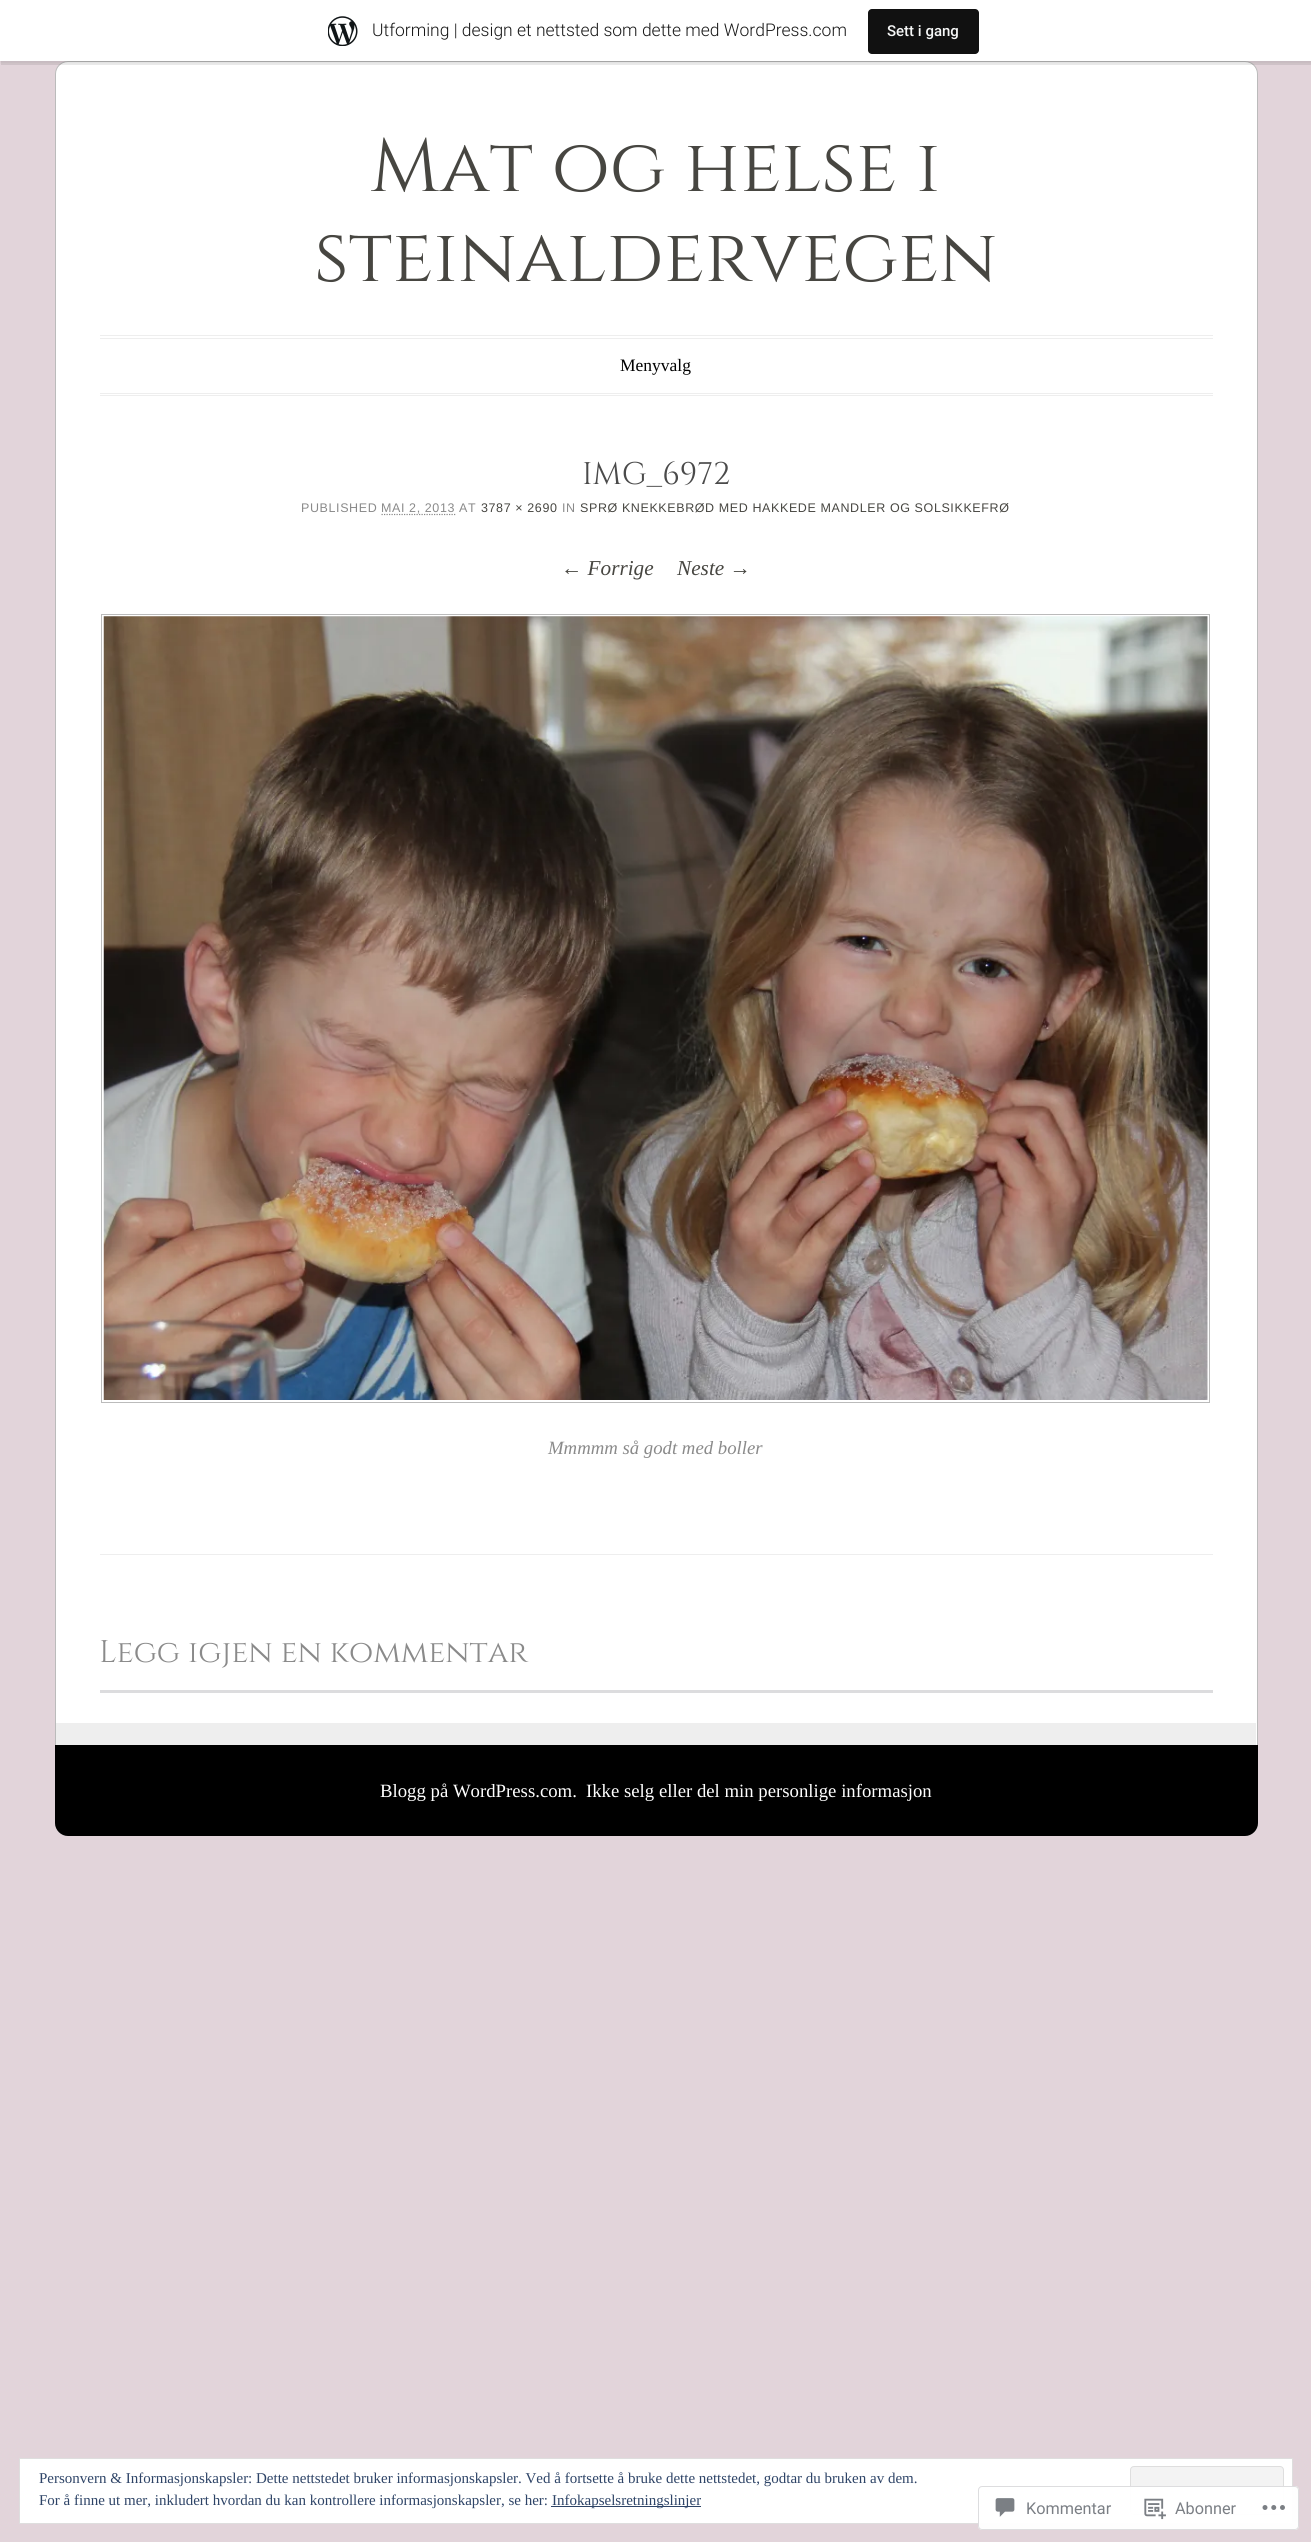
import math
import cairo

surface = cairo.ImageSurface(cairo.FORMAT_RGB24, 1311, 2542)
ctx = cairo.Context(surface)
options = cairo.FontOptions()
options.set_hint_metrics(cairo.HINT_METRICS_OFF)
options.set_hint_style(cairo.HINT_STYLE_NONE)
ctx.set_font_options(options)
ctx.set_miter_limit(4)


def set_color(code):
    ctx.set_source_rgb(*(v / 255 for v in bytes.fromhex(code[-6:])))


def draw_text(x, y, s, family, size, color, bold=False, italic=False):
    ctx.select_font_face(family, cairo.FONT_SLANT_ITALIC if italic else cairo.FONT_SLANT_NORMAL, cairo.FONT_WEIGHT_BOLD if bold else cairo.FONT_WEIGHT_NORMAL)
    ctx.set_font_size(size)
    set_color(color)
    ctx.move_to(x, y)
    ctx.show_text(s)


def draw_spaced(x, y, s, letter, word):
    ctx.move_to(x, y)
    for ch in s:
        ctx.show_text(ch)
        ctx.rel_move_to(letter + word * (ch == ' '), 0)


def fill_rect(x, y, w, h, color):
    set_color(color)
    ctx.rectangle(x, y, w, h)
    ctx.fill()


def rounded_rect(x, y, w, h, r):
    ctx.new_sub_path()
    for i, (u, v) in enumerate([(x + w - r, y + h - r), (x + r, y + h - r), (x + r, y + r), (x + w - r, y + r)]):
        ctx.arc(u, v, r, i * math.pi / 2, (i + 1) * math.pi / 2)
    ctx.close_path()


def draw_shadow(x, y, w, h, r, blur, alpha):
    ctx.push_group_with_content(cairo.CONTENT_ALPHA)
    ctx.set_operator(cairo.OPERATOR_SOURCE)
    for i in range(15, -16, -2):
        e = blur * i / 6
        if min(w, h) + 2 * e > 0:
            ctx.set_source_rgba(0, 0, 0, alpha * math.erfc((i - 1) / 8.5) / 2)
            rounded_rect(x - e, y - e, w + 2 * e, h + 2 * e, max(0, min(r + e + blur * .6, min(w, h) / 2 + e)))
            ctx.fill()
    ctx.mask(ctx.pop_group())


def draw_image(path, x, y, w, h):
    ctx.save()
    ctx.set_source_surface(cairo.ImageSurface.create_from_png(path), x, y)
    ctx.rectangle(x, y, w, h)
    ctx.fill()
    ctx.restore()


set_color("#e2d4da")
ctx.paint()
set_color("#ffffff")
rounded_rect(55.5, 61.5, 1202, 1774, 12.5)
ctx.fill_preserve()
set_color("#bbbbbb")
ctx.set_line_width(1)
ctx.stroke()
set_color("#000000")
draw_shadow(0, 1, 1311, 62, 0, 1, 0.05)
ctx.set_source_rgba(0, 0, 0, 0.08)
ctx.new_path()
ctx.move_to(1, 61)
ctx.line_to(1, 65)
ctx.line_to(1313, 65)
ctx.line_to(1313, 4)
ctx.line_to(1311, 4)
ctx.line_to(1311, 61)
ctx.close_path()
ctx.fill()
fill_rect(0, 0, 1311, 61, "#ffffff")
draw_image("assets/img1.png", 328, 16, 30, 30)
draw_text(372, 36, "Utforming | design et nettsted som dette med WordPress.com", "Roboto Light", 17.5, "#171717")
set_color("#111111")
rounded_rect(868, 9, 111, 45, 4)
ctx.fill()
draw_text(887, 36, "Sett i gang", "Roboto Medium", 15, "#f6f7f7")
draw_text(370, 191, "Mat og helse i", "Cinzel", 75, "#474641")
draw_text(314, 281, "steinaldervegen", "Cinzel", 75, "#474641")
fill_rect(100, 335, 1113, 1, "#eeeeee")
fill_rect(100, 338, 1113, 1, "#eeeeee")
fill_rect(100, 393, 1113, 1, "#eeeeee")
fill_rect(100, 395, 1113, 1, "#eeeeee")
draw_text(620, 371, "Menyvalg", "Liberation Serif", 17.5, "#000000")
fill_rect(56, 1723, 1200, 22, "#eeeeee")
draw_text(582, 484, "IMG_6972", "Cinzel", 31.25, "#4a4a4a")
ctx.select_font_face("Liberation Sans")
ctx.set_font_size(12.5)
set_color("#8a8a8a")
draw_spaced(301, 512, "PUBLISHED", 0.6, 0)
ctx.new_path()
ctx.move_to(381.5, 514.5)
ctx.line_to(455.5, 514.5)
ctx.set_line_width(1.2)
ctx.set_dash([1.25, 1.25])
ctx.stroke()
draw_spaced(381, 512, "MAI 2, 2013 AT", 0.6, 0)
set_color("#474641")
draw_spaced(481, 512, "3787 × 2690", 0.6, 0)
set_color("#8a8a8a")
draw_spaced(562, 512, "IN", 0.6, 0)
set_color("#474641")
draw_spaced(580, 512, "SPRØ KNEKKEBRØD MED HAKKEDE MANDLER OG SOLSIKKEFRØ", 0.6, 0)
draw_text(561, 575, "← Forrige", "Liberation Serif", 21.25, "#474641", italic=True)
draw_text(677, 575, "Neste →", "Liberation Serif", 21.25, "#474641", italic=True)
ctx.rectangle(101.5, 614.5, 1108, 788)
set_color("#bbbbbb")
ctx.set_line_width(1)
ctx.set_dash([])
ctx.stroke()
draw_image("assets/img2.png", 103, 616, 1105, 784)
draw_text(548, 1454, "Mmmmm så godt med boller", "Liberation Serif", 18.75, "#8a8a8a", italic=True)
fill_rect(100, 1554, 1113, 1, "#eeeeee")
draw_text(99, 1662, "Legg igjen en kommentar", "Cinzel", 31.25, "#8a8a8a")
fill_rect(100, 1690, 1113, 3, "#dcdcde")
set_color("#000000")
ctx.new_path()
ctx.move_to(55, 1745)
ctx.line_to(1258, 1745)
ctx.line_to(1258, 1823)
ctx.curve_to(1258, 1830, 1252, 1836, 1245, 1836)
ctx.line_to(68, 1836)
ctx.curve_to(61, 1836, 55, 1830, 55, 1823)
ctx.close_path()
ctx.fill()
draw_text(380, 1797, "Blogg på WordPress.com.", "Liberation Serif", 18.75, "#ffffff")
draw_text(586, 1797, "Ikke selg eller del min personlige informasjon", "Liberation Serif", 18.75, "#ffffff")
ctx.rectangle(19.5, 2458.5, 1273, 65)
ctx.fill_preserve()
set_color("#dedede")
ctx.stroke()
draw_text(39, 2483, "Personvern & Informasjonskapsler: Dette nettstedet bruker informasjonskapsler. Ved å fortsette å bruke dette nettstedet, godtar du bruken av dem.", "Liberation Serif", 15, "#2e4467")
set_color("#f3f3f3")
rounded_rect(1130.5, 2466.5, 153, 48, 3.5)
ctx.fill_preserve()
set_color("#dedede")
ctx.stroke()
draw_text(39, 2505, "For å finne ut mer, inkludert hvordan du kan kontrollere informasjonskapsler, se her:", "Liberation Serif", 15, "#2e4467")
fill_rect(551, 2506, 150, 1, "#2e4467")
draw_text(552, 2505, "Infokapselsretningslinjer", "Liberation Serif", 15, "#2e4467")
ctx.set_source_rgba(1, 1, 1, 0.98)
rounded_rect(978, 2486, 321, 44, 4)
ctx.fill()
rounded_rect(978.5, 2486.5, 320, 43, 3.5)
ctx.set_source_rgba(0.863, 0.863, 0.871, 0.98)
ctx.stroke()
draw_image("assets/img3.png", 995, 2498, 20, 19)
draw_text(1026, 2514, "Kommentar", "Roboto", 16.25, "#7b7f85")
draw_image("assets/img4.png", 1144, 2498, 22, 22)
draw_text(1175, 2514, "Abonner", "Roboto", 16.25, "#7b7f85")
draw_image("assets/img5.png", 1262, 2505, 23, 5)
surface.write_to_png("output.png")
